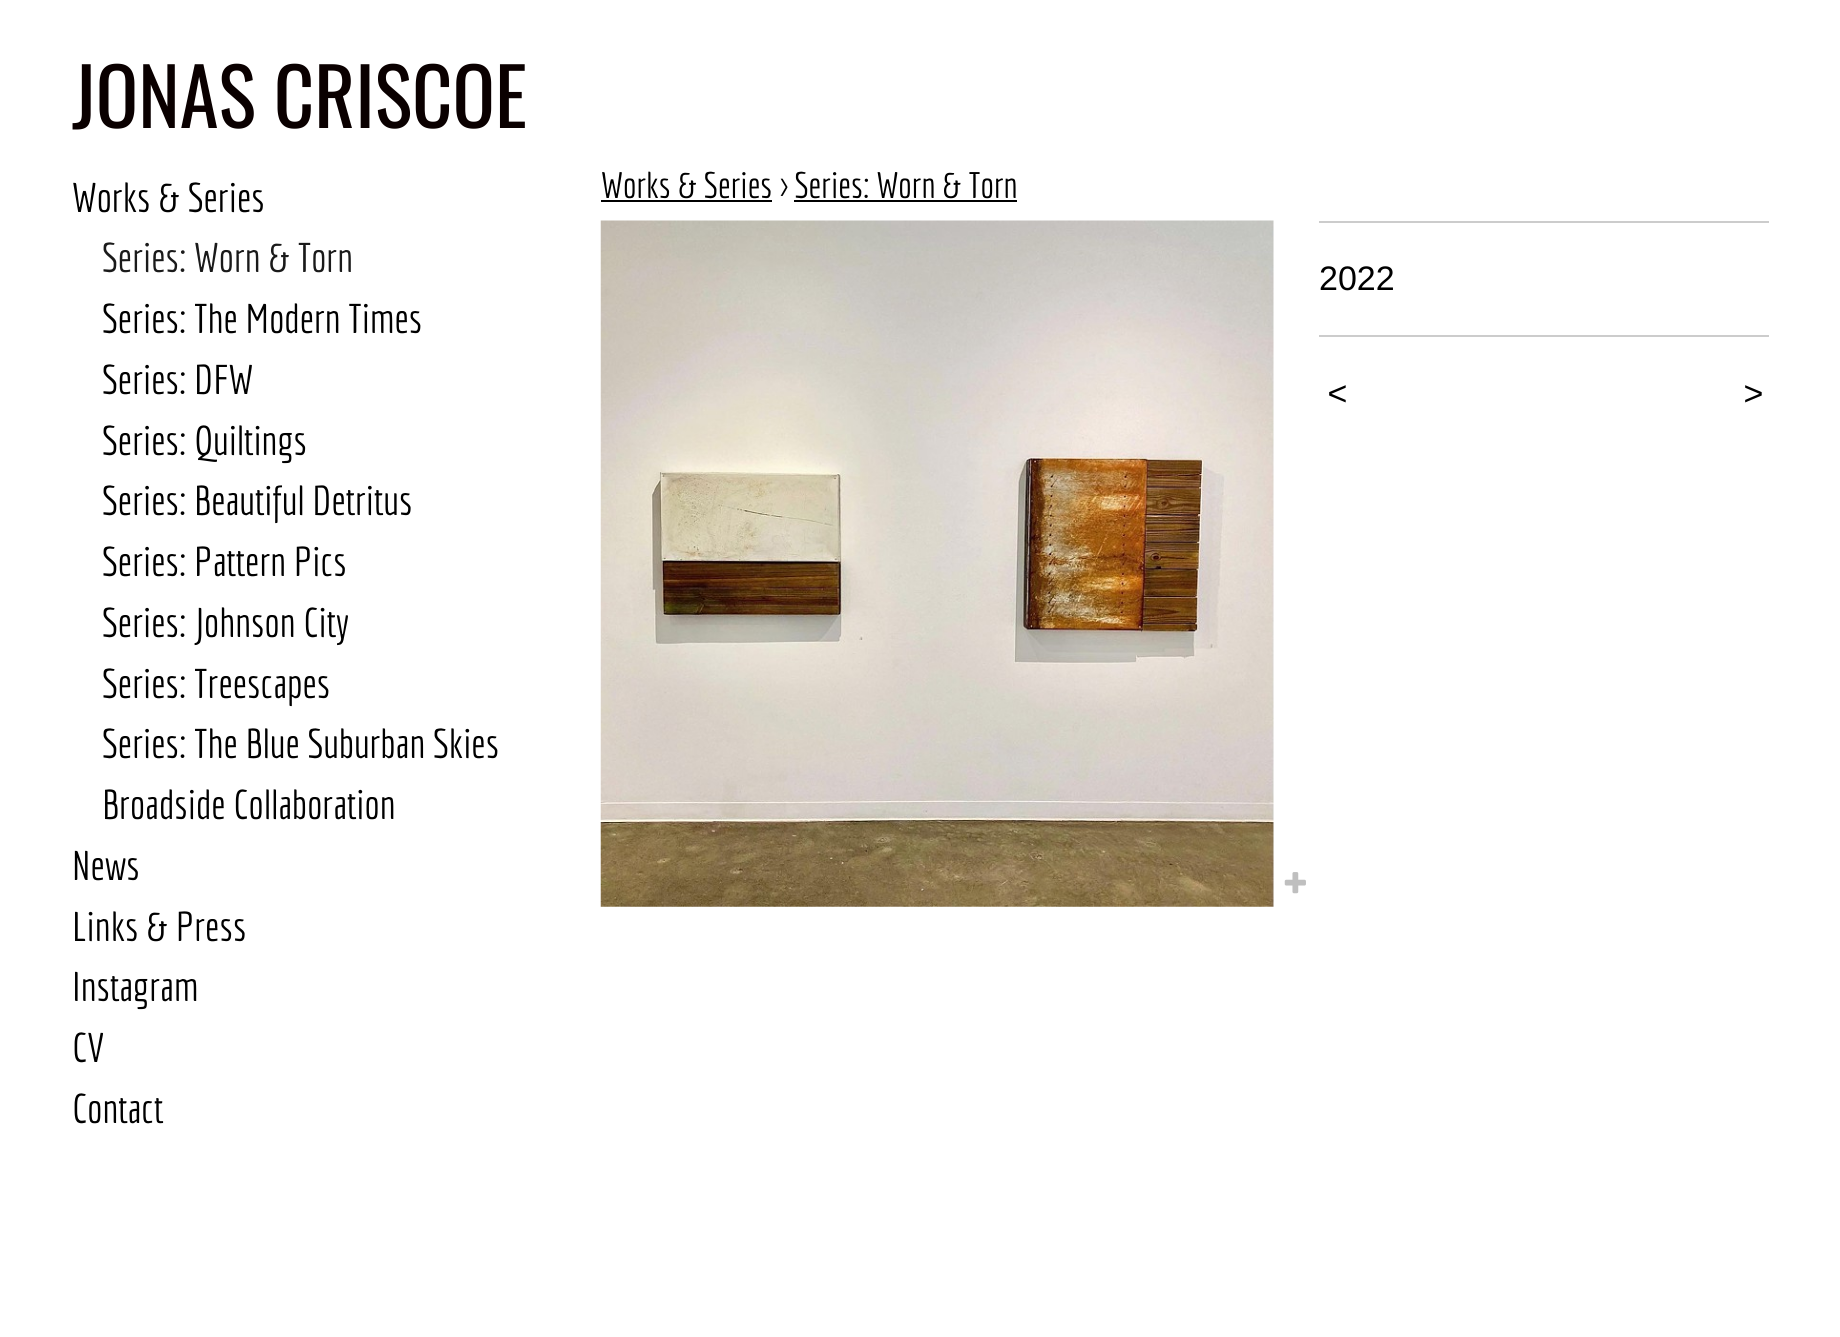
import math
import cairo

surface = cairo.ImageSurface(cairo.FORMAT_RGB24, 1840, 1337)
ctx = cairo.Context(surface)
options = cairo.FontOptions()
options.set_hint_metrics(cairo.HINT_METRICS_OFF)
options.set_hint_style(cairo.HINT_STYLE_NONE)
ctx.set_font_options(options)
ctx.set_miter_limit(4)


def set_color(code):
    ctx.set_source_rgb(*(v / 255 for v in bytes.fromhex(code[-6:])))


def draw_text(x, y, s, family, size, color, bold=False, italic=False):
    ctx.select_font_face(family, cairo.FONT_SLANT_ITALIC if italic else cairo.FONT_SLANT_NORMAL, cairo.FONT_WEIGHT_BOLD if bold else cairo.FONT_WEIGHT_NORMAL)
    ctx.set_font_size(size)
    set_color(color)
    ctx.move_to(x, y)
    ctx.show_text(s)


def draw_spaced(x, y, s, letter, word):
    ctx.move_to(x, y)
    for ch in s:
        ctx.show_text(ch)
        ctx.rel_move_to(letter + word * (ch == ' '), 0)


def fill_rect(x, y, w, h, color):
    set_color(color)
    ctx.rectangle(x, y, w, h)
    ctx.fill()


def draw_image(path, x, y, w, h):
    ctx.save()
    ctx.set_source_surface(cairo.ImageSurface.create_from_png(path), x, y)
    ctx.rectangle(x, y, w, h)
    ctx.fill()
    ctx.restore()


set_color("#ffffff")
ctx.paint()
draw_text(72, 128, "JONAS CRISCOE", "Oswald", 78.75, "#0a0000")
draw_text(72, 212, "Works & Series", "Economica", 40.5, "#000000")
draw_text(102, 272, "Series: Worn & Torn", "Economica", 40.5, "#1a1a1a")
draw_text(102, 333, "Series: The Modern Times", "Economica", 40.5, "#000000")
draw_text(102, 394, "Series: DFW", "Economica", 40.5, "#000000")
draw_text(102, 455, "Series: Quiltings", "Economica", 40.5, "#000000")
draw_text(102, 515, "Series: Beautiful Detritus", "Economica", 40.5, "#000000")
draw_text(102, 576, "Series: Pattern Pics", "Economica", 40.5, "#000000")
draw_text(102, 637, "Series: Johnson City", "Economica", 40.5, "#000000")
draw_text(102, 698, "Series: Treescapes", "Economica", 40.5, "#000000")
draw_text(102, 758, "Series: The Blue Suburban Skies", "Economica", 40.5, "#000000")
draw_text(102, 819, "Broadside Collaboration", "Economica", 40.5, "#000000")
draw_text(72, 880, "News", "Economica", 40.5, "#000000")
draw_text(72, 941, "Links & Press", "Economica", 40.5, "#000000")
draw_text(72, 1001, "Instagram", "Economica", 40.5, "#000000")
draw_text(72, 1062, "CV", "Economica", 40.5, "#000000")
draw_text(72, 1123, "Contact", "Economica", 40.5, "#000000")
draw_text(601, 198, "Works & Series > Series: Worn & Torn", "Economica", 36, "#000000")
fill_rect(601, 200, 171, 2, "#000000")
fill_rect(794, 200, 223, 2, "#000000")
draw_image("assets/img1.png", 600, 220, 674, 687)
draw_image("assets/img2.png", 1284, 872, 22, 22)
fill_rect(1319, 221, 450, 2, "#cccccc")
draw_text(1319, 290, "2022", "Liberation Sans", 34, "#000000")
fill_rect(1319, 335, 450, 2, "#cccccc")
ctx.select_font_face("Liberation Sans", cairo.FONT_SLANT_ITALIC)
set_color("#000000")
draw_spaced(1327, 405, "<", 2, 0)
draw_spaced(1743, 405, ">", 2, 0)
surface.write_to_png("output.png")
